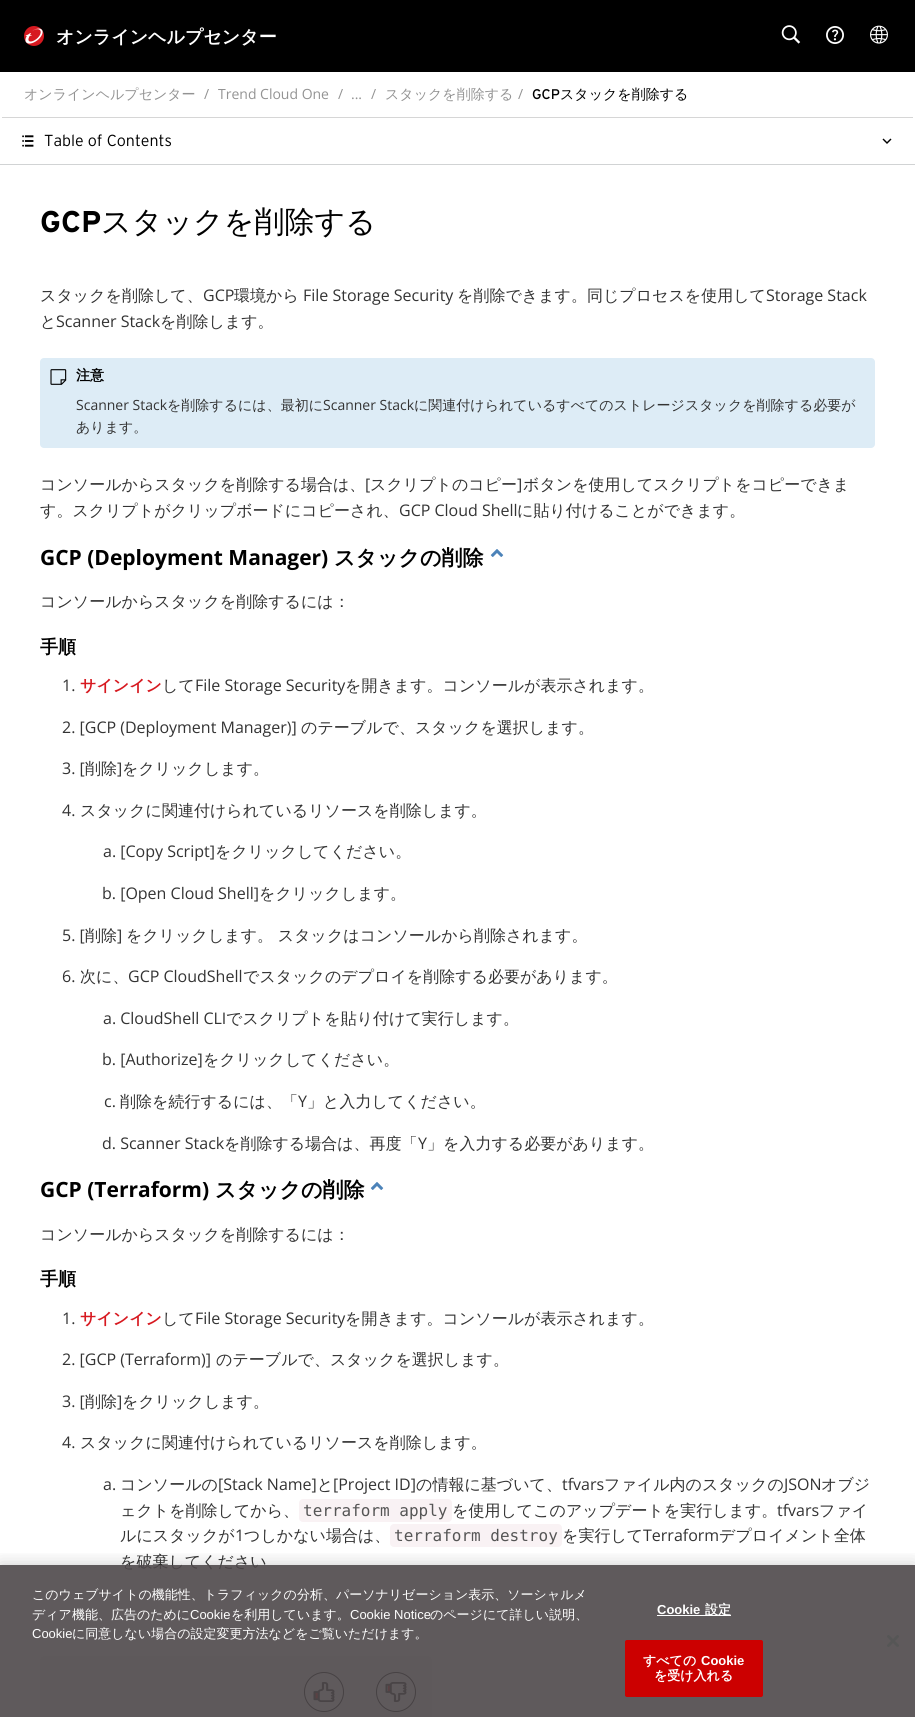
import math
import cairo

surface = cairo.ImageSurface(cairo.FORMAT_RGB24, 915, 1717)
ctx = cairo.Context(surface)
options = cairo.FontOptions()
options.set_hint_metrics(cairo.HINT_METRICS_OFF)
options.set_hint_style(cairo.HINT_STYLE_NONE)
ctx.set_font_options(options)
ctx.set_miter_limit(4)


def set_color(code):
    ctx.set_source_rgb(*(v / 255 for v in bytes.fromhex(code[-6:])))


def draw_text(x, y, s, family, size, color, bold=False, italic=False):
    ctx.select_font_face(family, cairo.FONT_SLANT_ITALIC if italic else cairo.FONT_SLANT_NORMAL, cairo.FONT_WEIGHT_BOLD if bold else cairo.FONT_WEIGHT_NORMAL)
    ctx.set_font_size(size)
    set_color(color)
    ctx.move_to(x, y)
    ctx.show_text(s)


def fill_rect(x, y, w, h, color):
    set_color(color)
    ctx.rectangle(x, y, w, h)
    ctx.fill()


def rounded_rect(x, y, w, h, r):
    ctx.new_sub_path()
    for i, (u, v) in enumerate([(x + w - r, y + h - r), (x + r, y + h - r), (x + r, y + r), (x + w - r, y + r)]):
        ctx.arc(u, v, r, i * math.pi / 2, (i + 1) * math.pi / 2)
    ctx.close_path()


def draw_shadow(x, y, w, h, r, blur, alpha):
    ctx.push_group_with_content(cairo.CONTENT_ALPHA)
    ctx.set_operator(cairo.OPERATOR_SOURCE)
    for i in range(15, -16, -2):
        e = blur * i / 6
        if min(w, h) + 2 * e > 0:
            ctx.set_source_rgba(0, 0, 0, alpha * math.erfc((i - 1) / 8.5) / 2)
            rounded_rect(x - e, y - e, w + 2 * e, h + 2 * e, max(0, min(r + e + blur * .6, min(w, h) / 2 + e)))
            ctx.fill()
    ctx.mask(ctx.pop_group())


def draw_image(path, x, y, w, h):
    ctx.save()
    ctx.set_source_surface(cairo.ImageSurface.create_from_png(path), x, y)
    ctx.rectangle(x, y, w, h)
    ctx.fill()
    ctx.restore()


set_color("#ffffff")
ctx.paint()
fill_rect(0, 0, 915, 72, "#000000")
draw_image("assets/img1.png", 24, 26, 20, 20)
draw_text(56, 43, "オンラインヘルプセンター", "WenQuanYi Zen Hei", 18, "#ffffff", bold=True)
draw_image("assets/img2.png", 781, 25, 20, 19)
draw_image("assets/img3.png", 826, 26, 18, 18)
draw_image("assets/img4.png", 870, 25, 18, 19)
fill_rect(2, 117, 911, 1, "#d6d6d6")
draw_text(24, 99, "オンラインヘルプセンター", "WenQuanYi Zen Hei Medium", 14, "#939393")
draw_text(204, 99, "/", "Open Sans", 14, "#939393")
draw_text(218, 99, "Trend Cloud One", "Open Sans", 14, "#939393")
draw_text(338, 99, "/", "Open Sans", 14, "#939393")
draw_text(351, 99, "...", "Open Sans", 14, "#939393")
draw_text(371, 99, "/", "Open Sans", 14, "#939393")
draw_text(385, 99, "スタックを削除する", "WenQuanYi Zen Hei Medium", 14, "#939393")
draw_text(518, 99, "/", "Open Sans", 14, "#939393")
draw_text(532, 99, "GCP", "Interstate", 14, "#000000")
draw_text(560, 99, "スタックを削除する", "WenQuanYi Zen Hei Medium", 14, "#000000")
fill_rect(0, 164, 915, 1, "#d1d3d4")
draw_image("assets/img5.png", 22, 135, 12, 12)
draw_text(44, 146, "Table of Contents", "Interstate Light", 16, "#000000")
draw_image("assets/img6.png", 882, 138, 10, 6)
draw_text(40, 232, "GCP", "Interstate", 30, "#000000", bold=True)
draw_text(101, 232, "スタックを削除する", "WenQuanYi Zen Hei Medium", 30, "#000000")
draw_text(40, 301, "スタックを削除して、", "WenQuanYi Zen Hei Medium", 16, "#333333")
draw_text(203, 301, "GCP", "Open Sans", 16, "#333333")
draw_text(234, 301, "環境から", "WenQuanYi Zen Hei Medium", 16, "#333333")
draw_text(303, 301, "File Storage Security", "Open Sans", 16, "#333333")
draw_text(457, 301, "を削除できます。同じプロセスを使用して", "WenQuanYi Zen Hei Medium", 16, "#333333")
draw_text(766, 301, "Storage Stack", "Open Sans", 16, "#333333")
draw_text(40, 327, "と", "WenQuanYi Zen Hei Medium", 16, "#333333")
draw_text(56, 327, "Scanner Stack", "Open Sans", 16, "#333333")
draw_text(160, 327, "を削除します。", "WenQuanYi Zen Hei Medium", 16, "#333333")
set_color("#ddecf6")
rounded_rect(40, 358, 835, 90, 4)
ctx.fill()
draw_image("assets/img7.png", 50, 369, 17, 16)
draw_text(76, 380, "注意", "WenQuanYi Zen Hei", 14, "#000000", bold=True)
draw_text(76, 410, "Scanner Stack", "Open Sans", 14, "#333333")
draw_text(167, 410, "を削除するには、最初に", "WenQuanYi Zen Hei Medium", 14, "#333333")
draw_text(323, 410, "Scanner Stack", "Open Sans", 14, "#333333")
draw_text(414, 410, "に関連付けられているすべてのストレージスタックを削除する必要が", "WenQuanYi Zen Hei Medium", 14, "#333333")
draw_text(76, 432, "あります。", "WenQuanYi Zen Hei Medium", 14, "#333333")
draw_text(40, 490, "コンソールからスタックを削除する場合は、", "WenQuanYi Zen Hei Medium", 16, "#333333")
draw_text(365, 490, "[", "Open Sans", 16, "#333333")
draw_text(370, 490, "スクリプトのコピー", "WenQuanYi Zen Hei Medium", 16, "#333333")
draw_text(517, 490, "]", "Open Sans", 16, "#333333")
draw_text(523, 490, "ボタンを使用してスクリプトをコピーできま", "WenQuanYi Zen Hei Medium", 16, "#333333")
draw_text(40, 516, "す。スクリプトがクリップボードにコピーされ、", "WenQuanYi Zen Hei Medium", 16, "#333333")
draw_text(399, 516, "GCP Cloud Shell", "Open Sans", 16, "#333333")
draw_text(517, 516, "に貼り付けることができます。", "WenQuanYi Zen Hei Medium", 16, "#333333")
draw_text(40, 565, "GCP (Deployment Manager)", "Open Sans", 21, "#000000", bold=True)
draw_text(334, 565, "スタックの削除", "WenQuanYi Zen Hei", 21, "#000000", bold=True)
draw_image("assets/img8.png", 490, 549, 14, 8)
draw_text(40, 607, "コンソールからスタックを削除するには：", "WenQuanYi Zen Hei Medium", 16, "#333333")
draw_text(40, 653, "手順", "WenQuanYi Zen Hei", 18, "#000000", bold=True)
draw_text(62, 691, "1.", "Open Sans", 16, "#333333")
draw_text(80, 691, "サインイン", "WenQuanYi Zen Hei", 16, "#d71920", bold=True)
draw_text(162, 691, "して", "WenQuanYi Zen Hei Medium", 16, "#333333")
draw_text(195, 691, "File Storage Security", "Open Sans", 16, "#333333")
draw_text(345, 691, "を開きます。コンソールが表示されます。", "WenQuanYi Zen Hei Medium", 16, "#333333")
draw_text(62, 733, "2. [GCP (Deployment Manager)]", "Open Sans", 16, "#333333")
draw_text(301, 733, "のテーブルで、スタックを選択します。", "WenQuanYi Zen Hei Medium", 16, "#333333")
draw_text(62, 774, "3. [", "Open Sans", 16, "#333333")
draw_text(85, 774, "削除", "WenQuanYi Zen Hei Medium", 16, "#333333")
draw_text(117, 774, "]", "Open Sans", 16, "#333333")
draw_text(122, 774, "をクリックします。", "WenQuanYi Zen Hei Medium", 16, "#333333")
draw_text(62, 816, "4.", "Open Sans", 16, "#333333")
draw_text(80, 816, "スタックに関連付けられているリソースを削除します。", "WenQuanYi Zen Hei Medium", 16, "#333333")
draw_text(103, 857, "a. [Copy Script]", "Open Sans", 16, "#333333")
draw_text(215, 857, "をクリックしてください。", "WenQuanYi Zen Hei Medium", 16, "#333333")
draw_text(102, 899, "b. [Open Cloud Shell]", "Open Sans", 16, "#333333")
draw_text(259, 899, "をクリックします。", "WenQuanYi Zen Hei Medium", 16, "#333333")
draw_text(62, 941, "5. [", "Open Sans", 16, "#333333")
draw_text(85, 941, "削除", "WenQuanYi Zen Hei Medium", 16, "#333333")
draw_text(117, 941, "]", "Open Sans", 16, "#333333")
draw_text(126, 941, "をクリックします。 スタックはコンソールから削除されます。", "WenQuanYi Zen Hei Medium", 16, "#333333")
draw_text(62, 982, "6.", "Open Sans", 16, "#333333")
draw_text(80, 982, "次に、", "WenQuanYi Zen Hei Medium", 16, "#333333")
draw_text(128, 982, "GCP CloudShell", "Open Sans", 16, "#333333")
draw_text(243, 982, "でスタックのデプロイを削除する必要があります。", "WenQuanYi Zen Hei Medium", 16, "#333333")
draw_text(103, 1024, "a. CloudShell CLI", "Open Sans", 16, "#333333")
draw_text(226, 1024, "でスクリプトを貼り付けて実行します。", "WenQuanYi Zen Hei Medium", 16, "#333333")
draw_text(102, 1065, "b. [Authorize]", "Open Sans", 16, "#333333")
draw_text(203, 1065, "をクリックしてください。", "WenQuanYi Zen Hei Medium", 16, "#333333")
draw_text(104, 1107, "c.", "Open Sans", 16, "#333333")
draw_text(120, 1107, "削除を続行するには、「", "WenQuanYi Zen Hei Medium", 16, "#333333")
draw_text(298, 1107, "Y", "Open Sans", 16, "#333333")
draw_text(307, 1107, "」と入力してください。", "WenQuanYi Zen Hei Medium", 16, "#333333")
draw_text(102, 1149, "d. Scanner Stack", "Open Sans", 16, "#333333")
draw_text(224, 1149, "を削除する場合は、再度「", "WenQuanYi Zen Hei Medium", 16, "#333333")
draw_text(418, 1149, "Y", "Open Sans", 16, "#333333")
draw_text(427, 1149, "」を入力する必要があります。", "WenQuanYi Zen Hei Medium", 16, "#333333")
draw_text(40, 1197, "GCP (Terraform)", "Open Sans", 21, "#000000", bold=True)
draw_text(215, 1197, "スタックの削除", "WenQuanYi Zen Hei", 21, "#000000", bold=True)
draw_image("assets/img8.png", 370, 1182, 14, 8)
draw_text(40, 1240, "コンソールからスタックを削除するには：", "WenQuanYi Zen Hei Medium", 16, "#333333")
draw_text(40, 1285, "手順", "WenQuanYi Zen Hei", 18, "#000000", bold=True)
draw_text(62, 1324, "1.", "Open Sans", 16, "#333333")
draw_text(80, 1324, "サインイン", "WenQuanYi Zen Hei", 16, "#d71920", bold=True)
draw_text(162, 1324, "して", "WenQuanYi Zen Hei Medium", 16, "#333333")
draw_text(195, 1324, "File Storage Security", "Open Sans", 16, "#333333")
draw_text(345, 1324, "を開きます。コンソールが表示されます。", "WenQuanYi Zen Hei Medium", 16, "#333333")
draw_text(62, 1365, "2. [GCP (Terraform)]", "Open Sans", 16, "#333333")
draw_text(216, 1365, "のテーブルで、スタックを選択します。", "WenQuanYi Zen Hei Medium", 16, "#333333")
draw_text(62, 1407, "3. [", "Open Sans", 16, "#333333")
draw_text(85, 1407, "削除", "WenQuanYi Zen Hei Medium", 16, "#333333")
draw_text(117, 1407, "]", "Open Sans", 16, "#333333")
draw_text(122, 1407, "をクリックします。", "WenQuanYi Zen Hei Medium", 16, "#333333")
draw_text(62, 1448, "4.", "Open Sans", 16, "#333333")
draw_text(80, 1448, "スタックに関連付けられているリソースを削除します。", "WenQuanYi Zen Hei Medium", 16, "#333333")
draw_text(103, 1490, "a.", "Open Sans", 16, "#333333")
draw_text(120, 1490, "コンソールの", "WenQuanYi Zen Hei Medium", 16, "#333333")
draw_text(218, 1490, "[Stack Name]", "Open Sans", 16, "#333333")
draw_text(317, 1490, "と", "WenQuanYi Zen Hei Medium", 16, "#333333")
draw_text(333, 1490, "[Project ID]", "Open Sans", 16, "#333333")
draw_text(416, 1490, "の情報に基づいて、", "WenQuanYi Zen Hei Medium", 16, "#333333")
draw_text(562, 1490, "tfvars", "Open Sans", 16, "#333333")
draw_text(604, 1490, "ファイル内のスタックの", "WenQuanYi Zen Hei Medium", 16, "#333333")
draw_text(784, 1490, "JSON", "Open Sans", 16, "#333333")
draw_text(821, 1490, "オブジ", "WenQuanYi Zen Hei Medium", 16, "#333333")
draw_text(120, 1516, "ェクトを削除してから、", "WenQuanYi Zen Hei Medium", 16, "#333333")
set_color("#f9f2f4")
rounded_rect(299, 1499, 153, 23, 4)
ctx.fill()
draw_text(303, 1516, "terraform apply", "DejaVu Sans Mono", 16, "#555555")
draw_text(452, 1516, "を使用してこのアップデートを実行します。", "WenQuanYi Zen Hei Medium", 16, "#333333")
draw_text(777, 1516, "tfvars", "Open Sans", 16, "#333333")
draw_text(819, 1516, "ファイ", "WenQuanYi Zen Hei Medium", 16, "#333333")
draw_text(120, 1541, "ルにスタックが", "WenQuanYi Zen Hei Medium", 16, "#333333")
draw_text(235, 1541, "1", "Open Sans", 16, "#333333")
draw_text(244, 1541, "つしかない場合は、", "WenQuanYi Zen Hei Medium", 16, "#333333")
set_color("#f9f2f4")
rounded_rect(390, 1524, 172, 23, 4)
ctx.fill()
draw_text(394, 1541, "terraform destroy", "DejaVu Sans Mono", 16, "#555555")
draw_text(562, 1541, "を実行して", "WenQuanYi Zen Hei Medium", 16, "#333333")
draw_text(643, 1541, "Terraform", "Open Sans", 16, "#333333")
draw_text(719, 1541, "デプロイメント全体", "WenQuanYi Zen Hei Medium", 16, "#333333")
draw_text(120, 1567, "を破棄してください", "WenQuanYi Zen Hei Medium", 16, "#333333")
set_color("#f9f9f9")
rounded_rect(40, 1656, 392, 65, 4)
ctx.fill()
set_color("#ffffff")
ctx.arc(324, 1692, 19.5, 0, 2 * math.pi)
ctx.fill_preserve()
set_color("#000000")
ctx.set_line_width(1)
ctx.stroke()
draw_image("assets/img9.png", 313, 1682, 22, 20)
set_color("#ffffff")
ctx.arc(396, 1692, 19.5, 0, 2 * math.pi)
ctx.fill_preserve()
set_color("#000000")
ctx.stroke()
draw_image("assets/img10.png", 385, 1682, 22, 20)
ctx.save()
ctx.rectangle(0, 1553, 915, 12)
ctx.clip()
set_color("#000000")
draw_shadow(0, 1565, 915, 152, 0, 9, 0.2)
ctx.restore()
ctx.set_source_rgba(0.306, 0.286, 0.294, 0.9)
ctx.rectangle(0, 1565, 915, 152)
ctx.fill()
draw_text(32, 1599, "このウェブサイトの機能性、トラフィックの分析、パーソナリゼーション表示、ソーシャルメ", "WenQuanYi Zen Hei Medium", 13, "#ffffff")
draw_text(32, 1619, "ディア機能、広告のために", "WenQuanYi Zen Hei Medium", 13, "#ffffff")
draw_text(190, 1619, "Cookie", "Liberation Sans", 13, "#ffffff")
draw_text(231, 1619, "を利用しています。", "WenQuanYi Zen Hei Medium", 13, "#ffffff")
draw_text(350, 1619, "Cookie Notice", "Liberation Sans", 13, "#ffffff")
draw_text(430, 1619, "のページにて詳しい説明、", "WenQuanYi Zen Hei Medium", 13, "#ffffff")
draw_text(32, 1638, "Cookie", "Liberation Sans", 13, "#ffffff")
draw_text(72, 1638, "に同意しない場合の設定変更方法などをご覧いただけます。", "WenQuanYi Zen Hei Medium", 13, "#ffffff")
draw_text(657, 1614, "Cookie", "Liberation Sans", 13, "#ffffff", bold=True)
fill_rect(657, 1615, 74, 1, "#ffffff")
draw_text(705, 1614, "設定", "WenQuanYi Zen Hei", 13, "#ffffff", bold=True)
set_color("#cc0000")
rounded_rect(625.5, 1640.5, 137, 56, 1.5)
ctx.fill_preserve()
ctx.stroke()
draw_text(643, 1665, "すべての", "WenQuanYi Zen Hei", 13, "#ffffff", bold=True)
draw_text(701, 1665, "Cookie", "Liberation Sans", 13, "#ffffff", bold=True)
draw_text(654, 1680, "を受け入れる", "WenQuanYi Zen Hei", 13, "#ffffff", bold=True)
draw_image("assets/img11.png", 887, 1635, 12, 12)
surface.write_to_png("output.png")
